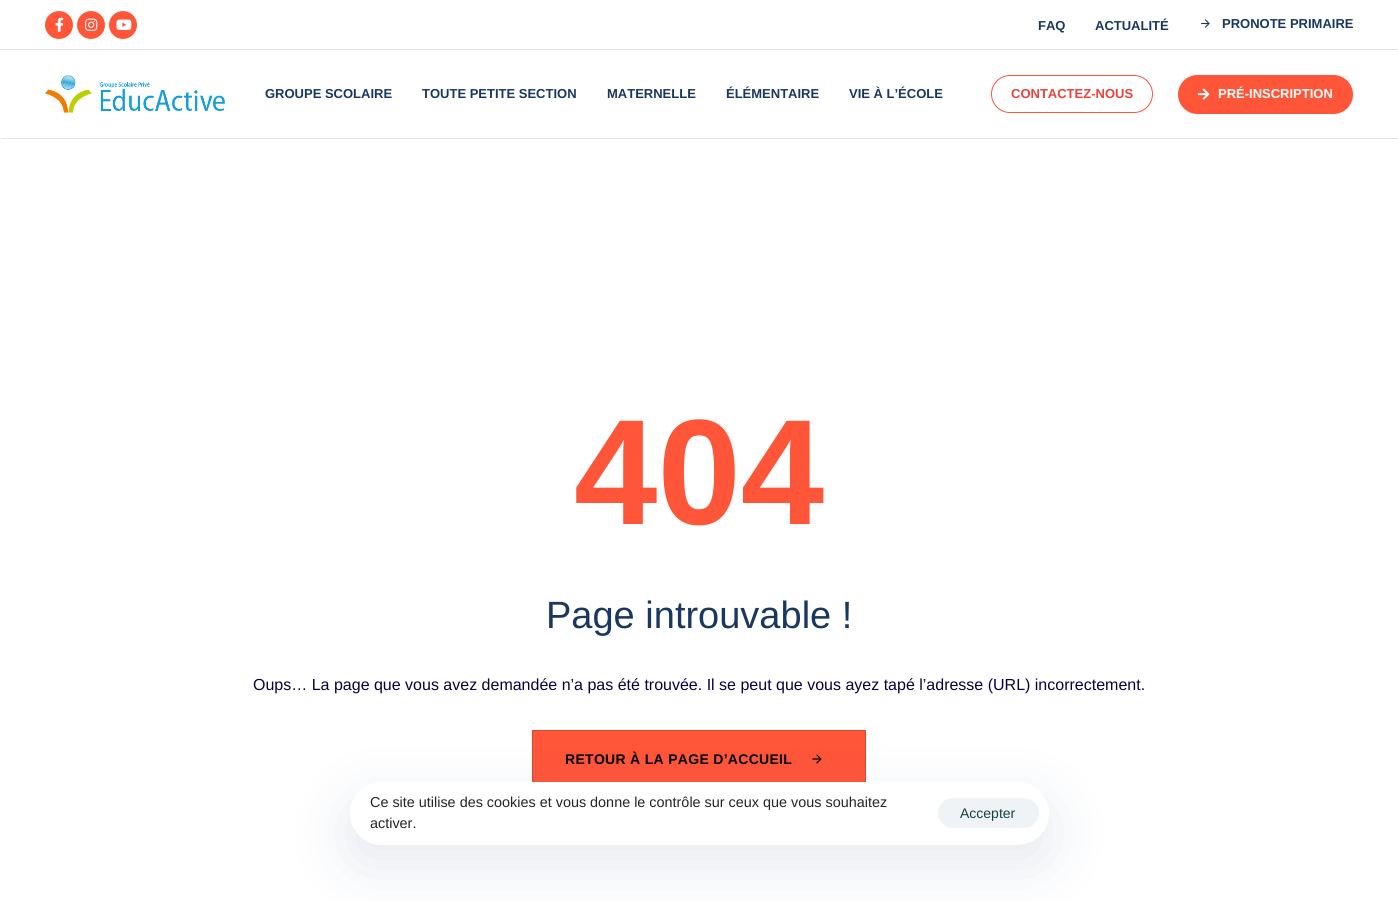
import math
import cairo

surface = cairo.ImageSurface(cairo.FORMAT_RGB24, 1398, 901)
ctx = cairo.Context(surface)
options = cairo.FontOptions()
options.set_hint_metrics(cairo.HINT_METRICS_OFF)
options.set_hint_style(cairo.HINT_STYLE_NONE)
ctx.set_font_options(options)
ctx.set_miter_limit(4)


def set_color(code):
    ctx.set_source_rgb(*(v / 255 for v in bytes.fromhex(code[-6:])))


def draw_text(x, y, s, family, size, color, bold=False, italic=False):
    ctx.select_font_face(family, cairo.FONT_SLANT_ITALIC if italic else cairo.FONT_SLANT_NORMAL, cairo.FONT_WEIGHT_BOLD if bold else cairo.FONT_WEIGHT_NORMAL)
    ctx.set_font_size(size)
    set_color(color)
    ctx.move_to(x, y)
    ctx.show_text(s)


def draw_spaced(x, y, s, letter, word):
    ctx.move_to(x, y)
    for ch in s:
        ctx.show_text(ch)
        ctx.rel_move_to(letter + word * (ch == ' '), 0)


def fill_rect(x, y, w, h, color):
    set_color(color)
    ctx.rectangle(x, y, w, h)
    ctx.fill()


def rounded_rect(x, y, w, h, r):
    ctx.new_sub_path()
    for i, (u, v) in enumerate([(x + w - r, y + h - r), (x + r, y + h - r), (x + r, y + r), (x + w - r, y + r)]):
        ctx.arc(u, v, r, i * math.pi / 2, (i + 1) * math.pi / 2)
    ctx.close_path()


def draw_shadow(x, y, w, h, r, blur, alpha):
    ctx.push_group_with_content(cairo.CONTENT_ALPHA)
    ctx.set_operator(cairo.OPERATOR_SOURCE)
    for i in range(15, -16, -2):
        e = blur * i / 6
        if min(w, h) + 2 * e > 0:
            ctx.set_source_rgba(0, 0, 0, alpha * math.erfc((i - 1) / 8.5) / 2)
            rounded_rect(x - e, y - e, w + 2 * e, h + 2 * e, max(0, min(r + e + blur * .6, min(w, h) / 2 + e)))
            ctx.fill()
    ctx.mask(ctx.pop_group())


def draw_image(path, x, y, w, h):
    ctx.save()
    ctx.set_source_surface(cairo.ImageSurface.create_from_png(path), x, y)
    ctx.rectangle(x, y, w, h)
    ctx.fill()
    ctx.restore()


set_color("#ffffff")
ctx.paint()
fill_rect(0, 49, 1398, 1, "#e1e5eb")
set_color("#ff5538")
ctx.arc(59, 25, 14, 0, 2 * math.pi)
ctx.fill()
draw_image("assets/img1.png", 55, 17, 9, 15)
ctx.arc(91, 25, 14, 0, 2 * math.pi)
ctx.fill()
draw_image("assets/img2.png", 85, 18, 13, 13)
ctx.arc(123, 25, 14, 0, 2 * math.pi)
ctx.fill()
draw_image("assets/img3.png", 116, 19, 16, 11)
draw_text(1038, 30, "FAQ", "Liberation Sans", 13, "#1a3760", bold=True)
draw_text(1095, 30, "ACTUALITÉ", "Liberation Sans", 13, "#1a3760", bold=True)
draw_image("assets/img4.png", 1201, 19, 9, 9)
draw_text(1222, 28, "PRONOTE PRIMAIRE", "Liberation Sans", 13, "#1a3760", bold=True)
fill_rect(1, 138, 1397, 1, "#e1e5eb")
draw_image("assets/img5.png", 45, 75, 180, 38)
draw_text(265, 98, "GROUPE SCOLAIRE", "Liberation Sans", 13, "#1a3760", bold=True)
draw_text(422, 98, "TOUTE PETITE SECTION", "Liberation Sans", 13, "#1a3760", bold=True)
draw_text(607, 98, "MATERNELLE", "Liberation Sans", 13, "#1a3760", bold=True)
draw_text(726, 98, "ÉLÉMENTAIRE", "Liberation Sans", 13, "#1a3760", bold=True)
draw_text(849, 98, "VIE À L’ÉCOLE", "Liberation Sans", 13, "#1a3760", bold=True)
rounded_rect(991.5, 75.5, 161, 37, 18.5)
set_color("#ff5538")
ctx.set_line_width(1)
ctx.stroke()
draw_text(1011, 98, "CONTACTEZ-NOUS", "Liberation Sans", 13, "#e9423b", bold=True)
set_color("#ff5538")
rounded_rect(1179, 76, 173, 37, 18.5)
ctx.fill_preserve()
ctx.set_line_width(2)
ctx.stroke()
draw_image("assets/img6.png", 1198, 88, 12, 12)
draw_text(1218, 98, "PRÉ-INSCRIPTION", "Liberation Sans", 13, "#ffffff", bold=True)
draw_text(574, 524, "404", "Liberation Sans", 150, "#ff5538", bold=True)
draw_text(546, 628, "Page introuvable !", "Liberation Sans", 38, "#1a3760")
draw_text(253, 690, "Oups… La page que vous avez demandée n’a pas été trouvée. Il se peut que vous ayez tapé l’adresse (URL) incorrectement.", "Liberation Sans", 16, "#0b003d")
fill_rect(533, 731, 332, 51, "#ff5538")
ctx.rectangle(532.5, 730.5, 333, 57)
set_color("#d94830")
ctx.set_line_width(1)
ctx.stroke()
ctx.select_font_face("Liberation Sans", cairo.FONT_SLANT_NORMAL, cairo.FONT_WEIGHT_BOLD)
ctx.set_font_size(14)
set_color("#000000")
draw_spaced(565, 764, "RETOUR À LA PAGE D’ACCUEIL", 0.3, 0)
draw_image("assets/img7.png", 812, 754, 10, 10)
set_color("#5c6b95")
draw_shadow(350, 802, 699, 63, 31.5, 30, 0.15)
set_color("#ffffff")
rounded_rect(350, 782, 699, 63, 31.5)
ctx.fill()
draw_text(370, 807, "Ce site utilise des cookies et vous donne le contrôle sur ceux que vous souhaitez", "Liberation Sans", 14.4, "#242424")
draw_text(370, 828, "activer.", "Liberation Sans", 14.4, "#242424")
set_color("#eff3f5")
rounded_rect(938, 798, 101, 30, 15)
ctx.fill()
draw_text(960, 818, "Accepter", "Liberation Sans", 14, "#184341")
surface.write_to_png("output.png")
